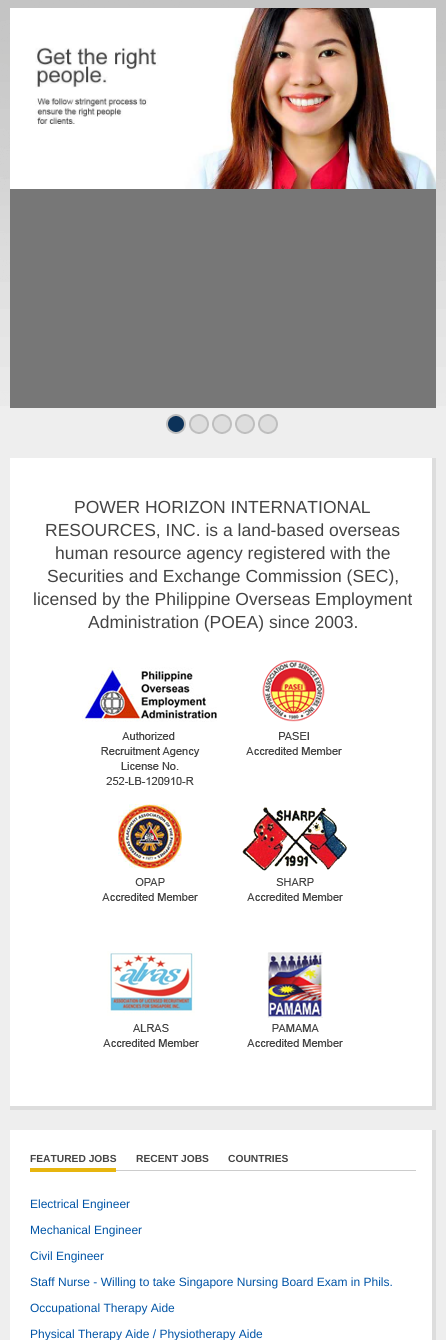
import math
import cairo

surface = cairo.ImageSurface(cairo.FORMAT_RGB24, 446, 1340)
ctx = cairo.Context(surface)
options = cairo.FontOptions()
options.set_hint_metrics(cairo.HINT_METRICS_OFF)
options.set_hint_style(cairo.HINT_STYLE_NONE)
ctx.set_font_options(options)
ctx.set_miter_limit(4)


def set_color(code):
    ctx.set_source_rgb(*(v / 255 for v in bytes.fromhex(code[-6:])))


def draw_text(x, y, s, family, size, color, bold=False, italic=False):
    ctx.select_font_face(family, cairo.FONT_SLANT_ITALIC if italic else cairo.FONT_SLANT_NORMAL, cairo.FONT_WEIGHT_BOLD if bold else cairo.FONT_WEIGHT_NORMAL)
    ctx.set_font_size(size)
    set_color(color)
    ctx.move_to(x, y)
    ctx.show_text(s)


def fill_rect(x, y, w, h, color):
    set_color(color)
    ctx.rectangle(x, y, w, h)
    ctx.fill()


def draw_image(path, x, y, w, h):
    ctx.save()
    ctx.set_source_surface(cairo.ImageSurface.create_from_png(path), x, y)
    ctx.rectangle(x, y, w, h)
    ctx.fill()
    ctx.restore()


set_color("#eeeeee")
ctx.paint()
draw_image("assets/img1.png", 0, 0, 446, 406)
fill_rect(10, 189, 426, 219, "#777777")
draw_image("assets/img2.png", 10, 8, 426, 181)
draw_image("assets/img3.png", 166, 414, 20, 20)
draw_image("assets/img4.png", 189, 414, 20, 20)
draw_image("assets/img4.png", 212, 414, 20, 20)
draw_image("assets/img4.png", 235, 414, 20, 20)
draw_image("assets/img4.png", 258, 414, 20, 20)
fill_rect(10, 458, 422, 648, "#ffffff")
fill_rect(432, 458, 4, 652, "#dddddd")
fill_rect(10, 1106, 426, 4, "#dddddd")
draw_text(74, 513, "POWER HORIZON INTERNATIONAL", "Liberation Sans", 17.5, "#444444")
draw_text(45, 536, "RESOURCES, INC. is a land-based overseas", "Liberation Sans", 17.5, "#444444")
draw_text(55, 559, "human resource agency registered with the", "Liberation Sans", 17.5, "#444444")
draw_text(47, 582, "Securities and Exchange Commission (SEC),", "Liberation Sans", 17.5, "#444444")
draw_text(33, 605, "licensed by the Philippine Overseas Employment", "Liberation Sans", 17.5, "#444444")
draw_text(88, 628, "Administration (POEA) since 2003.", "Liberation Sans", 17.5, "#444444")
draw_image("assets/img5.png", 82, 667, 135, 118)
draw_image("assets/img6.png", 246, 660, 96, 95)
draw_image("assets/img7.png", 102, 804, 96, 97)
draw_image("assets/img8.png", 242, 807, 105, 94)
draw_image("assets/img9.png", 103, 951, 96, 96)
draw_image("assets/img10.png", 247, 952, 96, 95)
fill_rect(10, 1130, 422, 210, "#ffffff")
fill_rect(432, 1130, 4, 210, "#dddddd")
fill_rect(116, 1170, 300, 1, "#cccccc")
fill_rect(30, 1168, 86, 4, "#e7b50e")
draw_text(30, 1162, "FEATURED JOBS", "Liberation Sans", 10.25, "#444444", bold=True)
draw_text(136, 1162, "RECENT JOBS", "Liberation Sans", 10.25, "#444444", bold=True)
draw_text(228, 1162, "COUNTRIES", "Liberation Sans", 10.25, "#444444", bold=True)
draw_text(30, 1208, "Electrical Engineer", "Liberation Sans", 12, "#0054a6")
draw_text(30, 1234, "Mechanical Engineer", "Liberation Sans", 12, "#0054a6")
draw_text(30, 1260, "Civil Engineer", "Liberation Sans", 12, "#0054a6")
draw_text(30, 1286, "Staff Nurse - Willing to take Singapore Nursing Board Exam in Phils.", "Liberation Sans", 12, "#0054a6")
draw_text(30, 1312, "Occupational Therapy Aide", "Liberation Sans", 12, "#0054a6")
draw_text(30, 1338, "Physical Therapy Aide / Physiotherapy Aide", "Liberation Sans", 12, "#0054a6")
surface.write_to_png("output.png")
